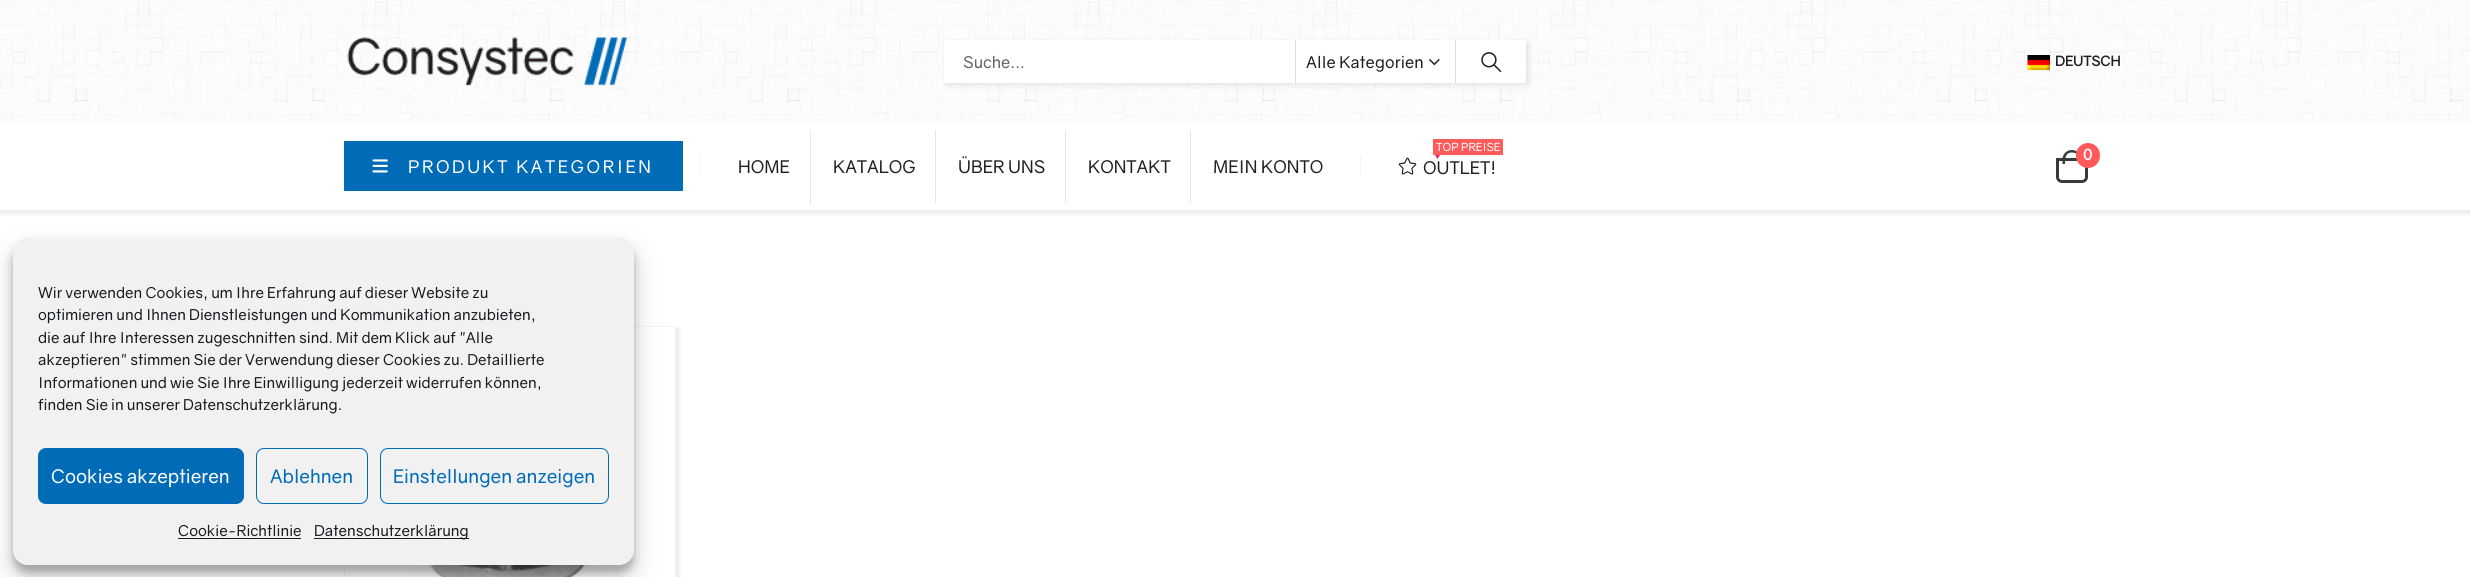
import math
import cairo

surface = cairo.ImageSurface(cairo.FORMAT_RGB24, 2470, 577)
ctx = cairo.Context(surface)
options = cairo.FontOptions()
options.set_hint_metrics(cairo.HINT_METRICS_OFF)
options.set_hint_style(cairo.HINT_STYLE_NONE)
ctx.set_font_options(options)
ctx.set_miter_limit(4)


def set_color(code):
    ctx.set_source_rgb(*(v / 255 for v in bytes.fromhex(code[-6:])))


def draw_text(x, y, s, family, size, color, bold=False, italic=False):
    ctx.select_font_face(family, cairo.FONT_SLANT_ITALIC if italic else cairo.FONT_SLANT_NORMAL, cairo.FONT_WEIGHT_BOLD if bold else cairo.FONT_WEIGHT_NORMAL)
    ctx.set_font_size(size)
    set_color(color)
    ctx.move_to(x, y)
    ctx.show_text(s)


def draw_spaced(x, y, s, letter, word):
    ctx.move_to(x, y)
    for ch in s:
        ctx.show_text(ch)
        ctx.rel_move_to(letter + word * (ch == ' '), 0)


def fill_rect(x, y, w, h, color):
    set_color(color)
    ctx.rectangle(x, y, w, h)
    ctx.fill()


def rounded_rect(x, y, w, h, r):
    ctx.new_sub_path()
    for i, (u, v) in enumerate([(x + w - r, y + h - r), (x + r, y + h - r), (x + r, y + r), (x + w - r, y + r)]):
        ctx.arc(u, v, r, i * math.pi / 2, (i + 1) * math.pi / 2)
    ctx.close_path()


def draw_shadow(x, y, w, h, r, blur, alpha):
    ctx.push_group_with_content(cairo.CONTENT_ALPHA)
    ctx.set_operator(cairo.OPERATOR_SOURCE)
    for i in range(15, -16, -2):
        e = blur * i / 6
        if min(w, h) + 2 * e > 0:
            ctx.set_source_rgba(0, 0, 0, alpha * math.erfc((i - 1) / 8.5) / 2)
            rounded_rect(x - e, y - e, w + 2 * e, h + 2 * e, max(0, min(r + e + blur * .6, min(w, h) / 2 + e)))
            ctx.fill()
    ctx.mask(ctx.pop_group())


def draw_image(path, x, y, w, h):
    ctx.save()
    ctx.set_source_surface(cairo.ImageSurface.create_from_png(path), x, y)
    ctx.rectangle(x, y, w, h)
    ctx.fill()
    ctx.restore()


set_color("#ffffff")
ctx.paint()
ctx.save()
ctx.rectangle(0, 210, 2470, 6)
ctx.clip()
set_color("#000000")
draw_shadow(-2, 120, 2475, 93, 0, 3, 0.1)
ctx.restore()
fill_rect(0, 122, 2470, 1, "#ffffff")
draw_image("assets/img1.png", 0, 0, 2470, 123)
draw_image("assets/img2.png", 347, 37, 281, 49)
fill_rect(944, 40, 582, 43, "#ffffff")
ctx.save()
ctx.set_fill_rule(cairo.FILL_RULE_EVEN_ODD)
ctx.new_path()
ctx.move_to(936, 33)
ctx.line_to(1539, 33)
ctx.line_to(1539, 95)
ctx.line_to(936, 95)
ctx.close_path()
ctx.move_to(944, 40)
ctx.line_to(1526, 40)
ctx.line_to(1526, 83)
ctx.line_to(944, 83)
ctx.close_path()
ctx.clip()
set_color("#000000")
draw_shadow(946, 43, 583, 42, 0, 3, 0.1)
ctx.restore()
draw_text(963, 68, "Suche...", "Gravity", 16.25, "#656263")
fill_rect(1455, 40, 1, 43, "#dddddd")
fill_rect(1295, 40, 1, 43, "#dddddd")
set_color("#231f20")
draw_spaced(1306, 68, "Alle Kategorien", 0.1, 0)
draw_image("assets/img3.png", 1429, 59, 11, 7)
draw_image("assets/img4.png", 1481, 52, 21, 21)
draw_image("assets/img5.png", 2027, 55, 23, 16)
draw_text(2055, 66, "DEUTSCH", "Gravity", 13.75, "#231f20", bold=True)
fill_rect(344, 141, 339, 50, "#006cb7")
draw_image("assets/img6.png", 372, 159, 16, 14)
ctx.select_font_face("Gravity")
ctx.set_font_size(17.5)
set_color("#ffffff")
draw_spaced(408, 173, "PRODUKT KATEGORIEN", 2.5, 0)
fill_rect(700, 156, 1, 20, "#f5f5f5")
fill_rect(810, 130, 1, 73, "#e6e6e6")
draw_text(738, 173, "HOME", "Gravity", 17.5, "#231f20")
fill_rect(935, 130, 1, 73, "#e6e6e6")
draw_text(833, 173, "KATALOG", "Gravity", 17.5, "#231f20")
fill_rect(1065, 130, 1, 73, "#e6e6e6")
draw_text(958, 173, "ÜBER UNS", "Gravity", 17.5, "#231f20")
fill_rect(1190, 130, 1, 73, "#e6e6e6")
draw_text(1088, 173, "KONTAKT", "Gravity", 17.5, "#231f20")
draw_text(1213, 173, "MEIN KONTO", "Gravity", 17.5, "#231f20")
fill_rect(1360, 156, 1, 20, "#f5f5f5")
fill_rect(1433, 139, 70, 16, "#ff5b5b")
draw_text(1436, 151, "TOP PREISE", "Gravity", 11.25, "#ffffff")
set_color("#eb2771")
ctx.new_path()
ctx.move_to(1435, 155)
ctx.line_to(1440, 155)
ctx.line_to(1437.5, 159)
ctx.close_path()
ctx.fill()
draw_image("assets/img7.png", 1398, 157, 19, 18)
draw_text(1423, 174, "OUTLET!", "Gravity", 17.5, "#231f20")
ctx.new_path()
ctx.move_to(2057.5, 159.5)
ctx.line_to(2086.5, 159.5)
ctx.line_to(2086.5, 177)
ctx.curve_to(2086.5, 179.5, 2084.5, 181.5, 2082, 181.5)
ctx.line_to(2062, 181.5)
ctx.curve_to(2059.5, 181.5, 2057.5, 179.5, 2057.5, 177)
ctx.close_path()
set_color("#383b3e")
ctx.set_line_width(3)
ctx.stroke()
ctx.set_fill_rule(cairo.FILL_RULE_EVEN_ODD)
ctx.new_path()
ctx.move_to(2072, 150)
ctx.curve_to(2077, 150, 2081, 154, 2081, 159.5)
ctx.line_to(2081, 164)
ctx.line_to(2062.5, 164)
ctx.line_to(2062.5, 159.5)
ctx.curve_to(2062.5, 154, 2066.5, 150, 2072, 150)
ctx.close_path()
ctx.move_to(2072, 152.5)
ctx.curve_to(2079, 152.5, 2079, 159, 2079, 164)
ctx.line_to(2065, 164)
ctx.curve_to(2065, 159, 2065, 152.5, 2072, 152.5)
ctx.close_path()
ctx.fill()
set_color("#ff5b5b")
rounded_rect(2076, 143, 24, 25, 12)
ctx.fill()
draw_text(2083, 160, "0", "Gravity", 15, "#ffffff", bold=True)
ctx.save()
ctx.set_fill_rule(cairo.FILL_RULE_WINDING)
ctx.rectangle(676, 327, 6, 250)
ctx.clip()
set_color("#000000")
draw_shadow(346, 329, 333, 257, 0, 3, 0.1)
ctx.restore()
ctx.rectangle(344.5, 326.5, 331, 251)
set_color("#f4f4f4")
ctx.set_line_width(1)
ctx.stroke()
draw_image("assets/img8.png", 414, 565, 192, 12)
set_color("#000000")
draw_shadow(13, 245, 621, 328, 15, 4, 0.23)
draw_shadow(13, 250, 621, 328, 15, 12.5, 0.19)
set_color("#f1f1f1")
rounded_rect(13, 238, 621, 327, 15)
ctx.fill()
draw_text(38, 298, "Wir verwenden Cookies, um Ihre Erfahrung auf dieser Website zu", "Gravity", 15, "#191e23")
draw_text(38, 320, "optimieren und Ihnen Dienstleistungen und Kommunikation anzubieten,", "Gravity", 15, "#191e23")
draw_text(38, 343, "die auf Ihre Interessen zugeschnitten sind. Mit dem Klick auf \"Alle", "Gravity", 15, "#191e23")
draw_text(38, 365, "akzeptieren\" stimmen Sie der Verwendung dieser Cookies zu. Detaillierte", "Gravity", 15, "#191e23")
draw_text(38, 388, "Informationen und wie Sie Ihre Einwilligung jederzeit widerrufen können,", "Gravity", 15, "#191e23")
draw_text(38, 410, "finden Sie in unserer Datenschutzerklärung.", "Gravity", 15, "#191e23")
set_color("#006cb7")
rounded_rect(38.5, 448.5, 205, 55, 7.5)
ctx.fill_preserve()
ctx.stroke()
draw_text(51, 483, "Cookies akzeptieren", "Gravity", 18.75, "#ffffff")
rounded_rect(256.5, 448.5, 111, 55, 7.5)
set_color("#006cb7")
ctx.stroke()
draw_text(270, 483, "Ablehnen", "Gravity", 18.75, "#006cb7")
rounded_rect(380.5, 448.5, 228, 55, 7.5)
ctx.stroke()
draw_text(393, 483, "Einstellungen anzeigen", "Gravity", 18.75, "#006cb7")
draw_text(178, 536, "Cookie-Richtlinie", "Gravity", 15, "#191e23")
fill_rect(178, 538, 123, 1, "#191e23")
fill_rect(314, 538, 155, 1, "#191e23")
draw_text(314, 536, "Datenschutzerklärung", "Gravity", 15, "#191e23")
surface.write_to_png("output.png")
